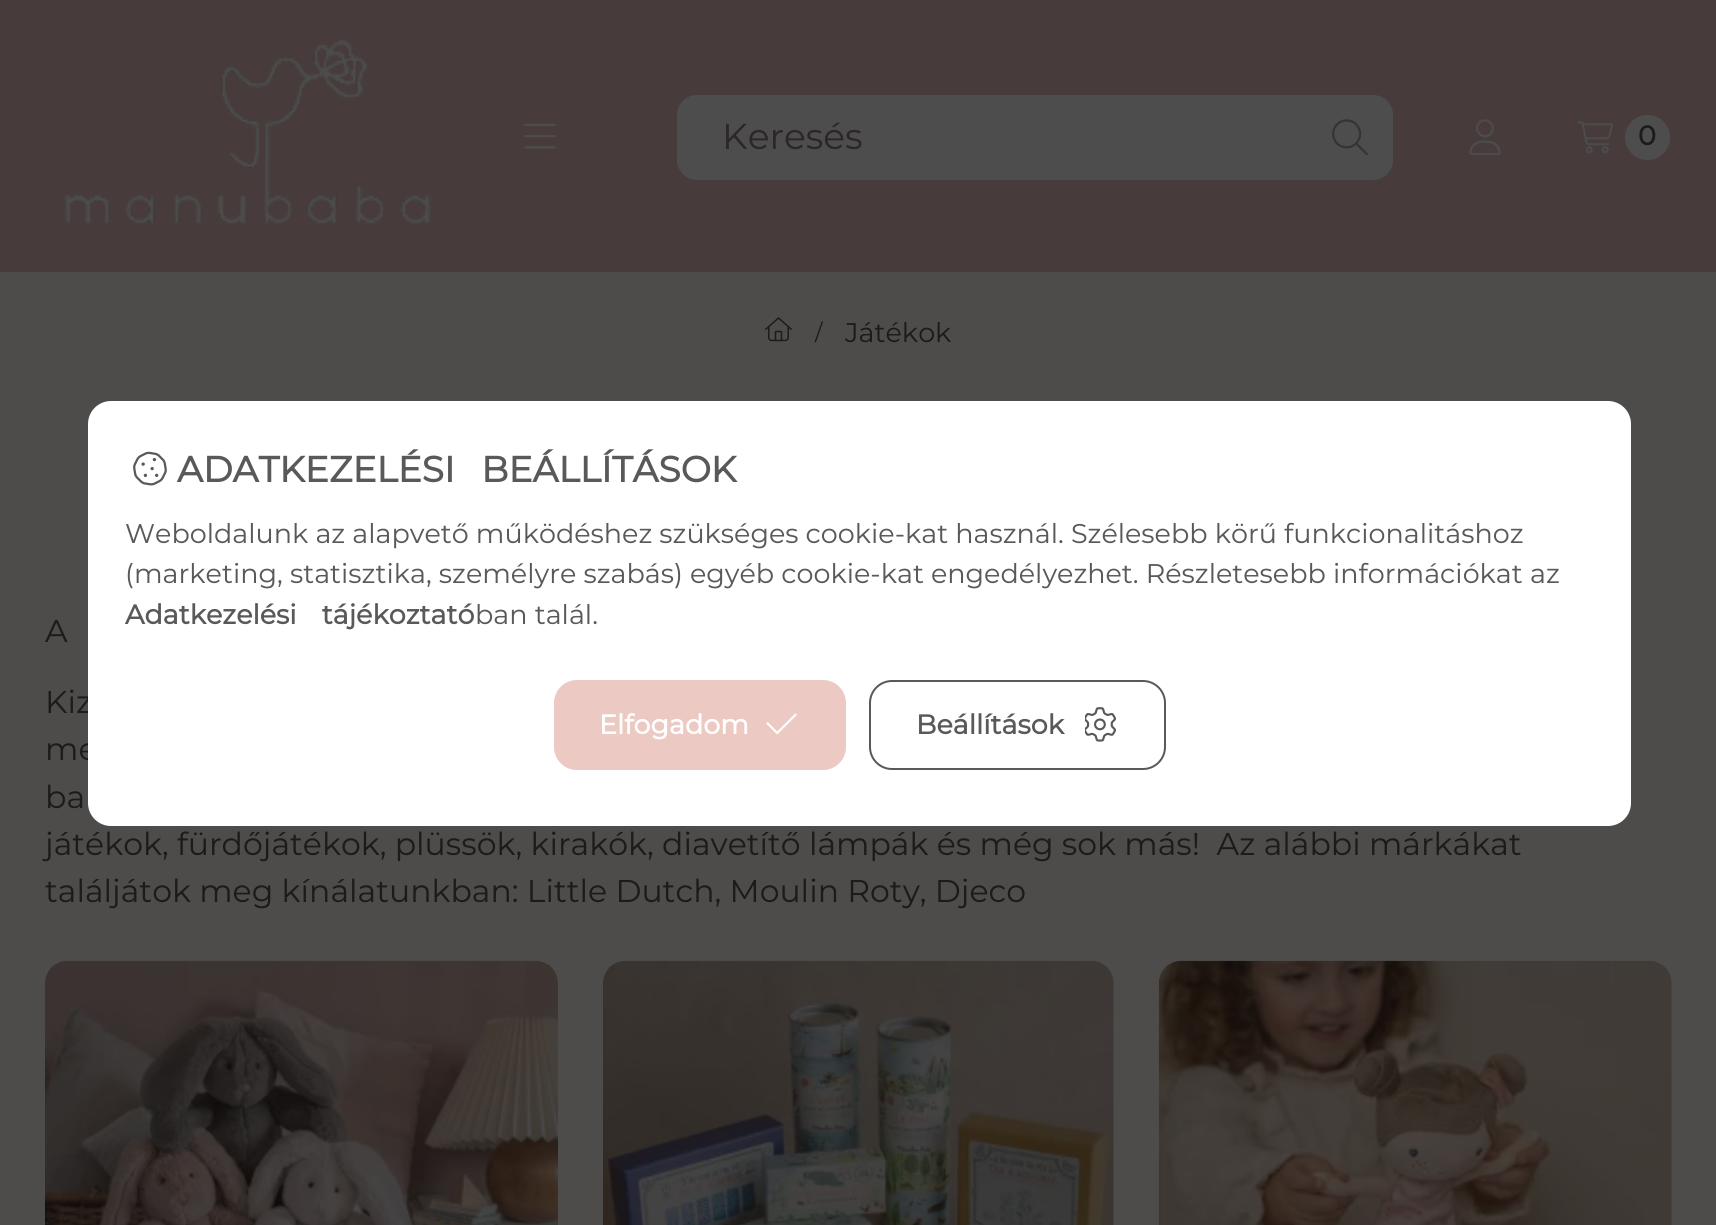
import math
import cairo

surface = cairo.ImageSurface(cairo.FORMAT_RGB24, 1716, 1225)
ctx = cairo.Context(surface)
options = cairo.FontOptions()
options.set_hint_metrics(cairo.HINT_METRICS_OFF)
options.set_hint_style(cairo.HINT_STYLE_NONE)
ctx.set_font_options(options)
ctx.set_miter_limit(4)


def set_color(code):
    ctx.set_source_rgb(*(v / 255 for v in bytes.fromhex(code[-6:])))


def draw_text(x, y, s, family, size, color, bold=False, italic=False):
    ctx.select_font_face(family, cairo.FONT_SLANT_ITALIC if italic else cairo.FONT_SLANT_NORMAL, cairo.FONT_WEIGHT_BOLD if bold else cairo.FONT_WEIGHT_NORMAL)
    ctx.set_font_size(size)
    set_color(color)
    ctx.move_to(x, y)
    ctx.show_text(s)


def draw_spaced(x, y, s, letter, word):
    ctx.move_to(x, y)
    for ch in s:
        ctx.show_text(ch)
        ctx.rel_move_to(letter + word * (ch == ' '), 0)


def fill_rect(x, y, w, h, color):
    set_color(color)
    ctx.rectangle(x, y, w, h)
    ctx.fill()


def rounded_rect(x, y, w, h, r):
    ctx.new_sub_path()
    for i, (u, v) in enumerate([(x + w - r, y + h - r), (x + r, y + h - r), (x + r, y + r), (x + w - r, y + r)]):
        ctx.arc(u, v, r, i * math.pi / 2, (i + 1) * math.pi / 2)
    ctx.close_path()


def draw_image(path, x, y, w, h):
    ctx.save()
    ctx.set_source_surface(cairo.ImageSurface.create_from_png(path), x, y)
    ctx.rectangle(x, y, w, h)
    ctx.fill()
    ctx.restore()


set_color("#4d4c4a")
ctx.paint()
fill_rect(0, 0, 1716, 272, "#473c3b")
draw_image("assets/img1.png", 64, 40, 367, 184)
draw_image("assets/img2.png", 524, 123, 32, 26)
set_color("#4d4d4d")
rounded_rect(677, 95, 716, 85, 20)
ctx.fill()
draw_text(722, 149, "Keresés", "Montserrat", 36, "#2c2626")
draw_image("assets/img3.png", 1332, 119, 36, 36)
draw_image("assets/img4.png", 1469, 119, 32, 36)
draw_image("assets/img5.png", 1577, 121, 36, 33)
set_color("#4d4d4d")
ctx.arc(1647.5, 137.5, 22.5, 0, 2 * math.pi)
ctx.fill()
draw_text(1638, 145, "0", "Montserrat", 27, "#1b1b1b", bold=True)
draw_image("assets/img6.png", 765, 317, 27, 25)
draw_text(815, 340, "/", "Montserrat", 22, "#1b1b1b")
draw_text(845, 342, "Játékok", "Montserrat", 27, "#1b1b1b")
draw_text(45, 642, "A", "Montserrat", 31.5, "#1b1b1b")
draw_text(45, 713, "Kiz", "Montserrat", 31.5, "#1b1b1b")
draw_text(45, 760, "me", "Montserrat", 31.5, "#1b1b1b")
draw_text(45, 808, "ba", "Montserrat", 31.5, "#1b1b1b")
draw_text(45, 855, "játékok, fürdőjátékok, plüssök, kirakók, diavetítő lámpák és még sok más!  Az alábbi márkákat", "Montserrat", 31.5, "#1b1b1b")
draw_text(45, 902, "találjátok meg kínálatunkban: Little Dutch, Moulin Roty, Djeco", "Montserrat", 31.5, "#1b1b1b")
draw_image("assets/img7.png", 45, 960, 513, 265)
set_color("#4d4d4d")
rounded_rect(603, 961, 511, 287, 23)
ctx.fill()
draw_image("assets/img8.png", 603, 960, 511, 265)
rounded_rect(1159, 961, 513, 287, 23)
ctx.fill()
draw_image("assets/img9.png", 1158, 960, 514, 265)
set_color("#ffffff")
rounded_rect(88, 401, 1543, 425, 23)
ctx.fill()
draw_image("assets/img10.png", 133, 451, 34, 35)
ctx.select_font_face("Montserrat", cairo.FONT_SLANT_NORMAL, cairo.FONT_WEIGHT_BOLD)
ctx.set_font_size(36)
set_color("#595959")
draw_spaced(177, 482, "ADATKEZELÉSI BEÁLLÍTÁSOK", 0, 17)
draw_text(125, 543, "Weboldalunk az alapvető működéshez szükséges cookie-kat használ. Szélesebb körű funkcionalitáshoz", "Montserrat", 27, "#595959")
draw_text(125, 583, "(marketing, statisztika, személyre szabás) egyéb cookie-kat engedélyezhet. Részletesebb információkat az", "Montserrat", 27, "#595959")
ctx.select_font_face("Montserrat", cairo.FONT_SLANT_NORMAL, cairo.FONT_WEIGHT_BOLD)
draw_spaced(125, 624, "Adatkezelési tájékoztató", 0, 18)
draw_text(475, 624, "ban talál.", "Montserrat", 27, "#595959")
set_color("#ecc9c3")
rounded_rect(555, 681, 290, 88, 22)
ctx.fill_preserve()
ctx.stroke()
draw_text(599, 734, "Elfogadom", "Montserrat", 27, "#ffffff", bold=True)
draw_image("assets/img11.png", 766, 713, 31, 21)
rounded_rect(870, 681, 295, 88, 22)
set_color("#595959")
ctx.stroke()
draw_text(916, 734, "Beállítások", "Montserrat", 27, "#595959", bold=True)
draw_image("assets/img12.png", 1085, 707, 32, 35)
surface.write_to_png("output.png")
